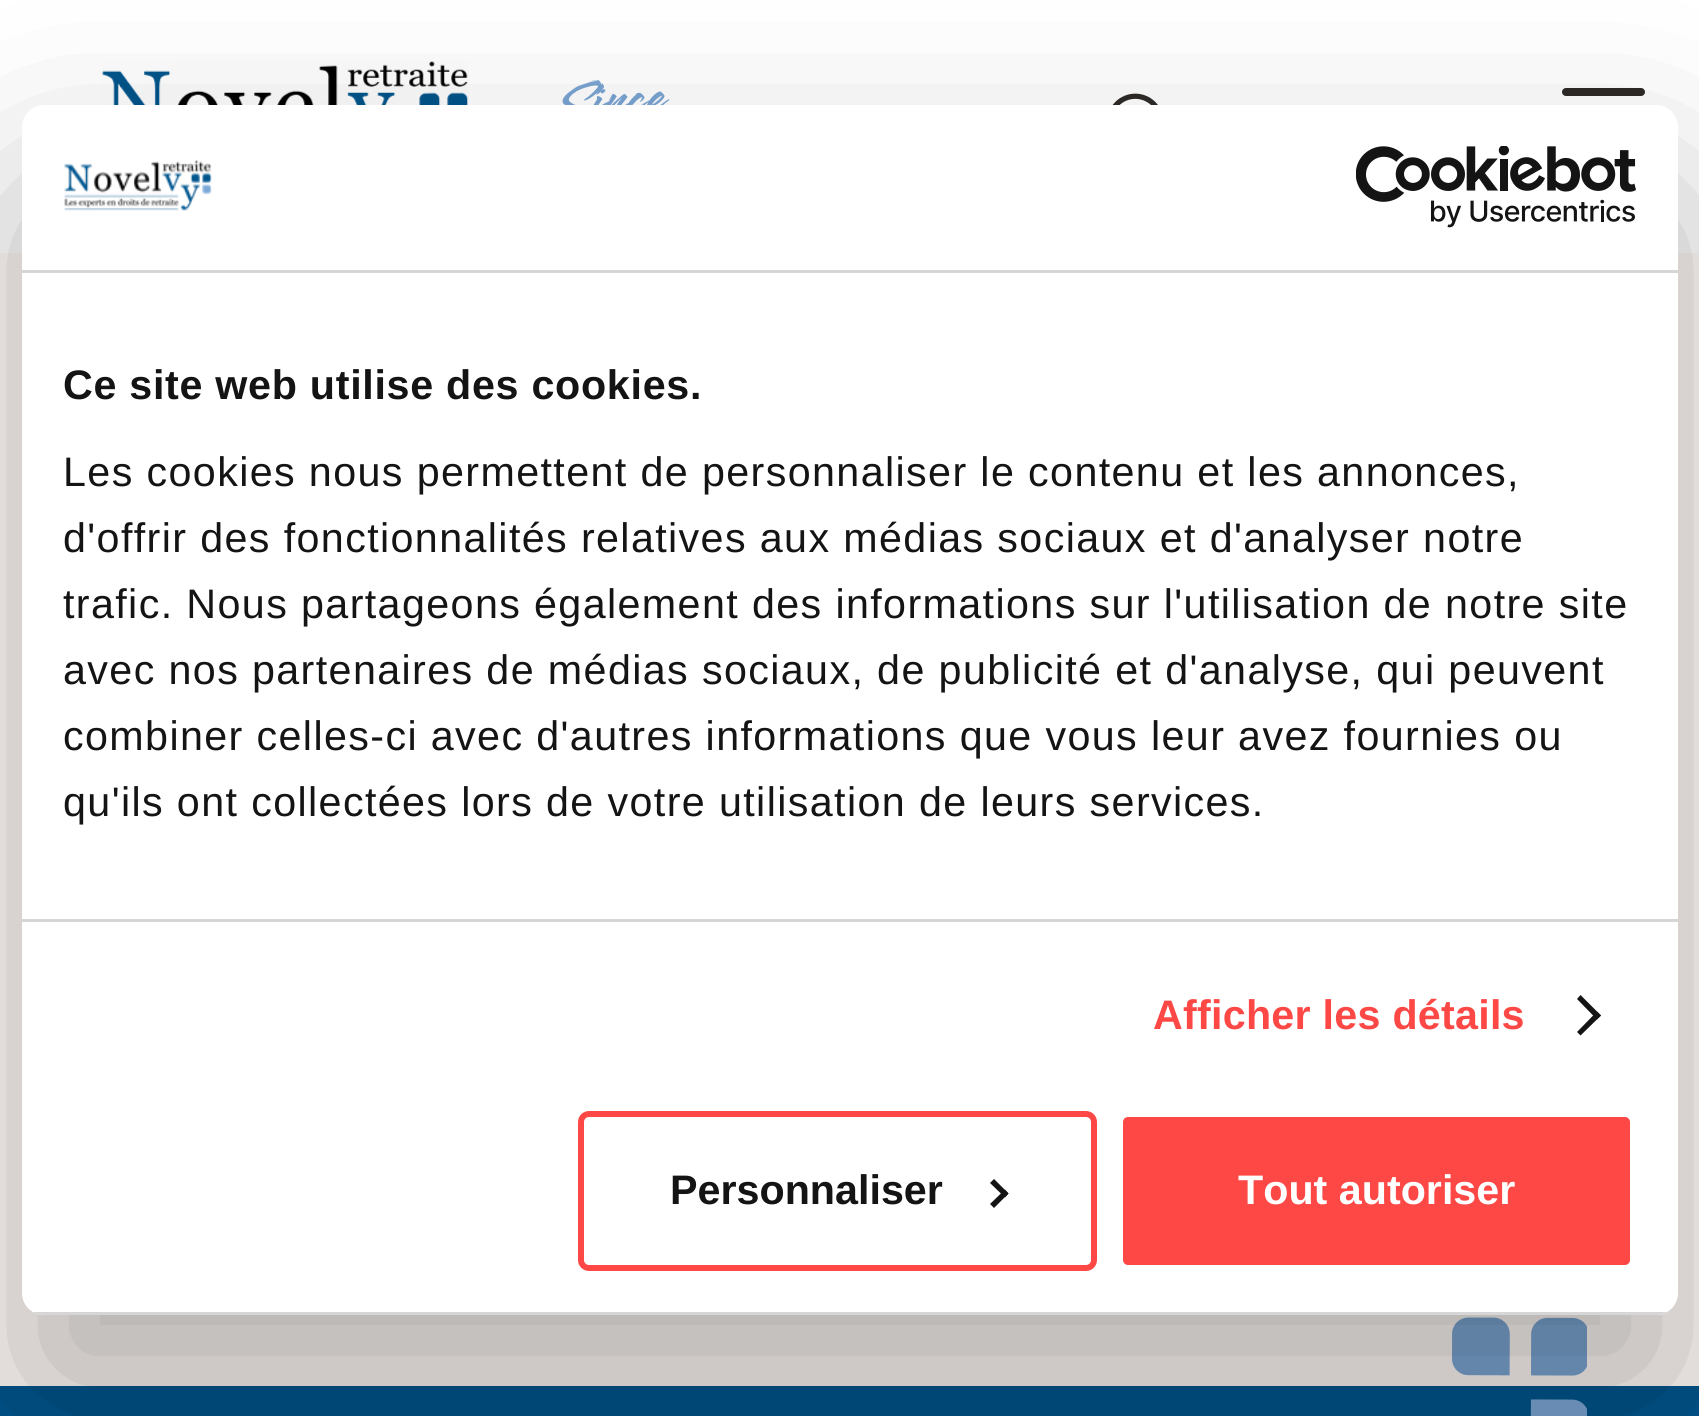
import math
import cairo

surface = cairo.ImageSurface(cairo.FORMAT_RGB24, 1699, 1416)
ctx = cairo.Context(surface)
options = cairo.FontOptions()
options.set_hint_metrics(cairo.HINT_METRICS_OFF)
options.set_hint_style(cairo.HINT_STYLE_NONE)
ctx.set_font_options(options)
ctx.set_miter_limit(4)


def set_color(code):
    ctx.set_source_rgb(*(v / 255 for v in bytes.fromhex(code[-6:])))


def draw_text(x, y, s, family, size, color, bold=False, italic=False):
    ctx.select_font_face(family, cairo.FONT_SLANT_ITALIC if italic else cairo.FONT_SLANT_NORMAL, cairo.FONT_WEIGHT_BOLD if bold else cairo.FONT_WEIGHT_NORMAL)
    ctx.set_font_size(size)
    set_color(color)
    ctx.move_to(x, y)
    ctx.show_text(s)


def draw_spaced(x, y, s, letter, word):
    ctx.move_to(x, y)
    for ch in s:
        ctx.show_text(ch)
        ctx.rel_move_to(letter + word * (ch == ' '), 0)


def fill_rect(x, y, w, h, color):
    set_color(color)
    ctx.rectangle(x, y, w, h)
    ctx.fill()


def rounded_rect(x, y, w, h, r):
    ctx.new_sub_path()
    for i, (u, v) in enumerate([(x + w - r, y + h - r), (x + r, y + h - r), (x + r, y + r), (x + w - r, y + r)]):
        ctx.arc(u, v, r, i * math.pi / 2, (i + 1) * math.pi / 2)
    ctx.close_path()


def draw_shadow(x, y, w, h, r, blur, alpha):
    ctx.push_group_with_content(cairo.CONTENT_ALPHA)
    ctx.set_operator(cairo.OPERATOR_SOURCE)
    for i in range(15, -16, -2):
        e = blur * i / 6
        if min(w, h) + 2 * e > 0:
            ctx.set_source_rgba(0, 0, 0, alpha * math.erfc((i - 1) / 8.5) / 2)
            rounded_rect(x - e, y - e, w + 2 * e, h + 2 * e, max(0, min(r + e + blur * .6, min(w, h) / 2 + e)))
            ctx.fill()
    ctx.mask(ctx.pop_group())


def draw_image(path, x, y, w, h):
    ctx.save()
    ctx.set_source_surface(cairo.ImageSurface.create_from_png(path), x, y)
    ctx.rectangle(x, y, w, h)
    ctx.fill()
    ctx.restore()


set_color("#fef8f5")
ctx.paint()
fill_rect(0, 0, 1699, 253, "#ffffff")
draw_image("assets/img1.png", 102, 61, 367, 44)
draw_image("assets/img2.png", 562, 80, 108, 25)
set_color("#2e2a27")
rounded_rect(1562, 88, 83, 8, 4)
ctx.fill()
draw_image("assets/img3.png", 1112, 93, 46, 12)
fill_rect(0, 1386, 1699, 30, "#00548b")
draw_image("assets/img6.png", 1452, 1317, 135, 99)
set_color("#000000")
draw_shadow(22, 193, 1656, 1210, 22, 93.5, 0.3)
set_color("#ffffff")
rounded_rect(22, 105, 1656, 1210, 22)
ctx.fill()
fill_rect(22, 270, 1656, 3, "#d6d6d6")
draw_image("assets/img4.png", 64, 159, 148, 52)
draw_image("assets/img5.png", 1356, 146, 280, 82)
fill_rect(22, 919, 1656, 3, "#d6d6d6")
ctx.select_font_face("Liberation Sans", cairo.FONT_SLANT_NORMAL, cairo.FONT_WEIGHT_BOLD)
ctx.set_font_size(41.25)
set_color("#141414")
draw_spaced(63, 399, "Ce site web utilise des cookies.", 0.7, 0)
ctx.select_font_face("Liberation Sans")
draw_spaced(63, 486, "Les cookies nous permettent de personnaliser le contenu et les annonces,", 1.38, 0)
draw_spaced(63, 552, "d'offrir des fonctionnalités relatives aux médias sociaux et d'analyser notre", 1.38, 0)
draw_spaced(63, 618, "trafic. Nous partageons également des informations sur l'utilisation de notre site", 1.38, 0)
draw_spaced(63, 684, "avec nos partenaires de médias sociaux, de publicité et d'analyse, qui peuvent", 1.38, 0)
draw_spaced(63, 750, "combiner celles-ci avec d'autres informations que vous leur avez fournies ou", 1.38, 0)
draw_spaced(63, 816, "qu'ils ont collectées lors de votre utilisation de leurs services.", 1.38, 0)
ctx.select_font_face("Liberation Sans", cairo.FONT_SLANT_NORMAL, cairo.FONT_WEIGHT_BOLD)
set_color("#fd4846")
draw_spaced(1153, 1029, "Afficher les détails", 0.25, 0)
set_color("#141414")
ctx.new_path()
ctx.move_to(1580.5, 995)
ctx.line_to(1601, 1015.5)
ctx.line_to(1597, 1019.5)
ctx.line_to(1577, 999)
ctx.close_path()
ctx.fill()
ctx.new_path()
ctx.move_to(1597, 1011.5)
ctx.line_to(1601, 1015.5)
ctx.line_to(1580.5, 1035.5)
ctx.line_to(1577, 1032)
ctx.close_path()
ctx.fill()
ctx.save()
rounded_rect(22, 105, 1656, 1210, 22)
ctx.clip()
fill_rect(33, 1312, 1634, 3, "#d6d6d6")
ctx.restore()
rounded_rect(581, 1114, 513, 154, 8)
set_color("#fd4846")
ctx.set_line_width(6)
ctx.stroke()
draw_text(670, 1204, "Personnaliser", "Liberation Sans", 41.25, "#141414", bold=True)
ctx.new_path()
ctx.move_to(994, 1179)
ctx.line_to(1008.5, 1193.5)
ctx.line_to(1005, 1197.5)
ctx.line_to(990, 1183)
ctx.close_path()
ctx.fill()
ctx.new_path()
ctx.move_to(1005, 1189.5)
ctx.line_to(1008.5, 1193.5)
ctx.line_to(994, 1208)
ctx.line_to(990, 1204)
ctx.close_path()
ctx.fill()
set_color("#fd4846")
rounded_rect(1120, 1114, 513, 154, 8)
ctx.fill_preserve()
set_color("#ffffff")
ctx.stroke()
draw_text(1238, 1204, "Tout autoriser", "Liberation Sans", 41.25, "#ffffff", bold=True)
surface.write_to_png("output.png")
